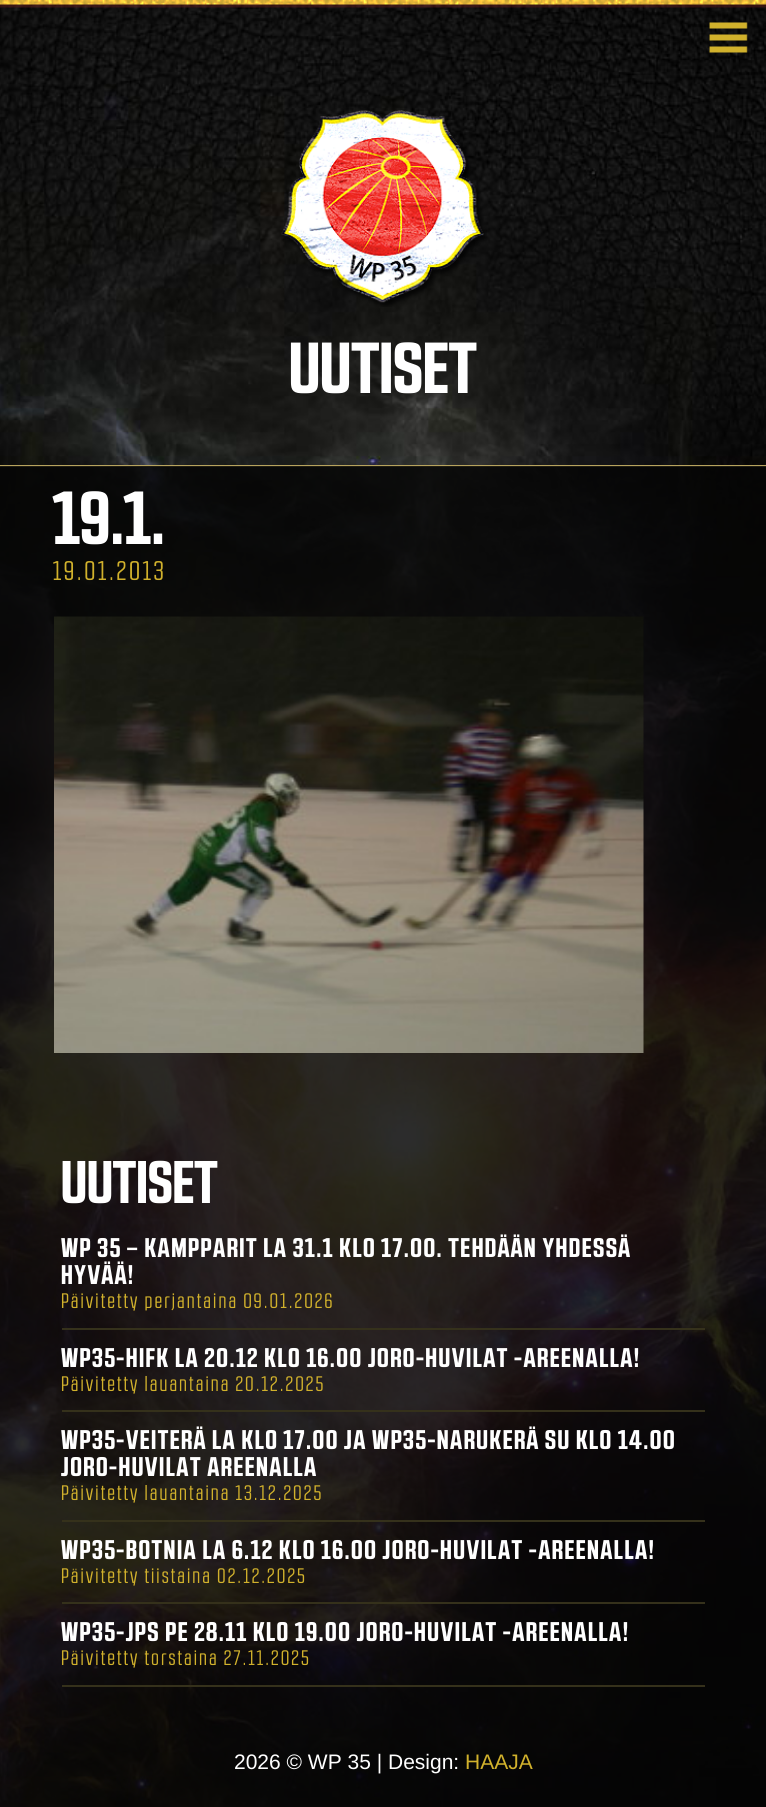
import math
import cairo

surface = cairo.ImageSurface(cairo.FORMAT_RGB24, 766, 1807)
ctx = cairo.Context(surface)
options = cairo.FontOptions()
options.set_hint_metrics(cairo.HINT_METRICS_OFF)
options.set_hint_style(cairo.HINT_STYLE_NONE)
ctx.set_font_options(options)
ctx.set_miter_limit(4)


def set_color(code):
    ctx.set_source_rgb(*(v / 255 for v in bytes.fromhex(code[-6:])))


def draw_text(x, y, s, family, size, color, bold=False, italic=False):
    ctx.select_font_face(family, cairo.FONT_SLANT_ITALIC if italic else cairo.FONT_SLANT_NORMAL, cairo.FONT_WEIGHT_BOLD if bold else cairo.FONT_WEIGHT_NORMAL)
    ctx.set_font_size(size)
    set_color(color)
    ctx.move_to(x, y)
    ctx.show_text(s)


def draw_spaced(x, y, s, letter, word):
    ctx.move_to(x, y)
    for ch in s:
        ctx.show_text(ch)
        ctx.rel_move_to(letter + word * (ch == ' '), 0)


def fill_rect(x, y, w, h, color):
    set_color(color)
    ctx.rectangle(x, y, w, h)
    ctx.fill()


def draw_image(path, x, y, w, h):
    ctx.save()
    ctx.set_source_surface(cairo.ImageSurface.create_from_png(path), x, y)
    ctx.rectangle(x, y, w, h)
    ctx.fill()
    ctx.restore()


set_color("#ffffff")
ctx.paint()
draw_image("assets/img1.png", 0, 4, 766, 1803)
fill_rect(0, 465, 766, 2, "#b7a35e")
draw_image("assets/img2.png", 0, 0, 766, 8)
draw_image("assets/img3.png", 709, 22, 39, 31)
draw_image("assets/img4.png", 281, 110, 206, 197)
draw_text(289, 393, "UUTISET", "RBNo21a", 72, "#ffffff", bold=True)
ctx.set_source_rgba(0.02, 0.02, 0.02, 0.84)
ctx.rectangle(0, 466, 766, 1341)
ctx.fill()
draw_text(53, 544, "19.1.", "RBNo21a", 75, "#ffffff", bold=True)
ctx.select_font_face("RBNo21a")
ctx.set_font_size(27)
set_color("#d1b12c")
draw_spaced(53, 580, "19.01.2013", 2.75, 0)
draw_image("assets/img5.png", 54, 616, 590, 437)
draw_text(61, 1203, "UUTISET", "RBNo21a", 60, "#ffffff", bold=True)
fill_rect(62, 1328, 643, 2, "#35311b")
ctx.set_font_size(27)
set_color("#ffffff")
draw_spaced(61, 1257, "WP 35 – KAMPPARIT LA 31.1 KLO 17.00. TEHDÄÄN YHDESSÄ", 1.5, 0)
draw_spaced(61, 1284, "HYVÄÄ!", 1.5, 0)
ctx.select_font_face("RBNo21a")
ctx.set_font_size(21)
set_color("#d1b12c")
draw_spaced(61, 1308, "Päivitetty perjantaina 09.01.2026", 2.1, 0)
fill_rect(62, 1410, 643, 2, "#35311b")
ctx.select_font_face("RBNo21a", cairo.FONT_SLANT_NORMAL, cairo.FONT_WEIGHT_BOLD)
ctx.set_font_size(27)
set_color("#ffffff")
draw_spaced(61, 1367, "WP35-HIFK LA 20.12 KLO 16.00 JORO-HUVILAT -AREENALLA!", 1.5, 0)
ctx.select_font_face("RBNo21a")
ctx.set_font_size(21)
set_color("#d1b12c")
draw_spaced(61, 1391, "Päivitetty lauantaina 20.12.2025", 2.1, 0)
fill_rect(62, 1520, 643, 2, "#35311b")
ctx.select_font_face("RBNo21a", cairo.FONT_SLANT_NORMAL, cairo.FONT_WEIGHT_BOLD)
ctx.set_font_size(27)
set_color("#ffffff")
draw_spaced(61, 1449, "WP35-VEITERÄ LA KLO 17.00 JA WP35-NARUKERÄ SU KLO 14.00", 1.5, 0)
draw_spaced(61, 1476, "JORO-HUVILAT AREENALLA", 1.5, 0)
ctx.select_font_face("RBNo21a")
ctx.set_font_size(21)
set_color("#d1b12c")
draw_spaced(61, 1500, "Päivitetty lauantaina 13.12.2025", 2.1, 0)
fill_rect(62, 1602, 643, 2, "#35311b")
ctx.select_font_face("RBNo21a", cairo.FONT_SLANT_NORMAL, cairo.FONT_WEIGHT_BOLD)
ctx.set_font_size(27)
set_color("#ffffff")
draw_spaced(61, 1559, "WP35-BOTNIA LA 6.12 KLO 16.00 JORO-HUVILAT -AREENALLA!", 1.5, 0)
ctx.select_font_face("RBNo21a")
ctx.set_font_size(21)
set_color("#d1b12c")
draw_spaced(61, 1583, "Päivitetty tiistaina 02.12.2025", 2.1, 0)
fill_rect(62, 1685, 643, 2, "#35311b")
ctx.select_font_face("RBNo21a", cairo.FONT_SLANT_NORMAL, cairo.FONT_WEIGHT_BOLD)
ctx.set_font_size(27)
set_color("#ffffff")
draw_spaced(61, 1641, "WP35-JPS PE 28.11 KLO 19.00 JORO-HUVILAT -AREENALLA!", 1.5, 0)
ctx.select_font_face("RBNo21a")
ctx.set_font_size(21)
set_color("#d1b12c")
draw_spaced(61, 1665, "Päivitetty torstaina 27.11.2025", 2.1, 0)
draw_text(234, 1769, "2026 © WP 35 | Design:", "Liberation Sans", 21, "#ffffff")
draw_text(465, 1769, "HAAJA", "Liberation Sans", 21, "#d1b12c")
surface.write_to_png("output.png")
